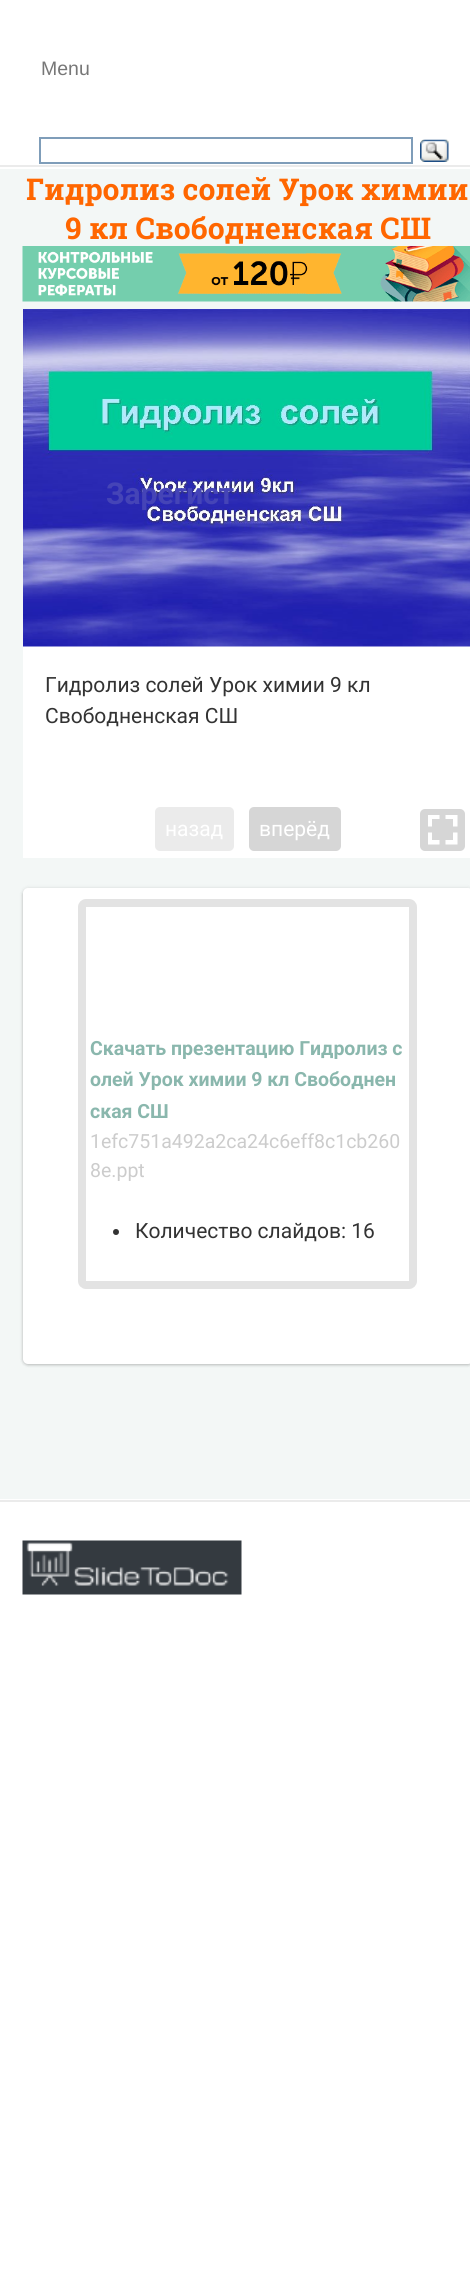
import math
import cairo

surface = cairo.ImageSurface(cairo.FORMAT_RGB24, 470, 2293)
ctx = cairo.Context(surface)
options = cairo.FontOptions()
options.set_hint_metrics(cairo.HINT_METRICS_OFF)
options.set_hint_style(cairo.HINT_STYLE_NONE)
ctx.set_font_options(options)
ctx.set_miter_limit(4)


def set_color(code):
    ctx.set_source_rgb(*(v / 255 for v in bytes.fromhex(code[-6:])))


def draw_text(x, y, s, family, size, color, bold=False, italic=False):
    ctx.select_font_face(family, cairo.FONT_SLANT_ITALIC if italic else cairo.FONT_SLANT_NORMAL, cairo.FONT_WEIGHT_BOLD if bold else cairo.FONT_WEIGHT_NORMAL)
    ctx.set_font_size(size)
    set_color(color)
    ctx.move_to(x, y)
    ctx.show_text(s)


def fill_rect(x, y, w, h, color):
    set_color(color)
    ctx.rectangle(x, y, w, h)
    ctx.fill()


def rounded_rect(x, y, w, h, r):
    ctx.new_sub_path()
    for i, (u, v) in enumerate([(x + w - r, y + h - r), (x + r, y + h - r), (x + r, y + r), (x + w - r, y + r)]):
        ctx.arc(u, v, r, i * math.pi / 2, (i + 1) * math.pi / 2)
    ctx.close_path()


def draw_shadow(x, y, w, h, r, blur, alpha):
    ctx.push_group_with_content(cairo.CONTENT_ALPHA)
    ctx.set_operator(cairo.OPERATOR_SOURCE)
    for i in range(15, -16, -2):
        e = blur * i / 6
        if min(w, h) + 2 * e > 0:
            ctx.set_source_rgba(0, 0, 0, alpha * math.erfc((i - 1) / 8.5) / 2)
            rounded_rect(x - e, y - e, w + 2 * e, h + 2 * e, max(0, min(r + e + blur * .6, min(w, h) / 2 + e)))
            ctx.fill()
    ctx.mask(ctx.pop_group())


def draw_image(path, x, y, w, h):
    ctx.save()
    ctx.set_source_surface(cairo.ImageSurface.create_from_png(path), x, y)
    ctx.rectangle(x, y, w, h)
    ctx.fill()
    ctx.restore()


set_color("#ffffff")
ctx.paint()
fill_rect(0, 165, 470, 2, "#ebebeb")
draw_text(41, 75, "Menu", "Liberation Sans", 19.5, "#777777")
ctx.rectangle(40, 138, 372, 25)
set_color("#7f9db9")
ctx.stroke()
draw_image("assets/img1.png", 420, 139, 29, 23)
fill_rect(0, 169, 470, 1330, "#f3f7f6")
draw_text(26, 200, "Гидролиз солей Урок химии", "Roboto Slab", 30, "#ff6600", bold=True)
draw_text(65, 239, "9 кл Свободненская СШ", "Roboto Slab", 30, "#ff6600", bold=True)
draw_image("assets/img2.png", 22, 246, 448, 56)
fill_rect(23, 646, 447, 212, "#ffffff")
draw_image("assets/img3.png", 23, 309, 447, 338)
draw_text(106, 504, "Зарегист", "Roboto", 30, "#4544b7", bold=True)
draw_text(45, 692, "Гидролиз солей Урок химии 9 кл", "Roboto", 21, "#333333")
draw_text(45, 723, "Свободненская СШ", "Roboto", 21, "#333333")
set_color("#ebebeb")
rounded_rect(155, 807, 79, 44, 5)
ctx.fill()
draw_text(165, 836, "назад", "Roboto", 21, "#ffffff")
set_color("#d6d6d6")
rounded_rect(249, 807, 92, 44, 5)
ctx.fill()
draw_text(259, 836, "вперёд", "Roboto", 21, "#ffffff")
set_color("#d6d6d6")
rounded_rect(420, 809, 45, 42, 5)
ctx.fill()
draw_image("assets/img4.png", 428, 815, 30, 30)
set_color("#000000")
draw_shadow(23, 888, 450, 476, 5, 2, 0.1)
draw_shadow(23, 890, 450, 475, 5, 1.5, 0.2)
set_color("#ffffff")
rounded_rect(23, 888, 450, 476, 5)
ctx.fill()
rounded_rect(82, 903, 331, 382, 4)
set_color("#e3e3e3")
ctx.set_line_width(8)
ctx.stroke()
draw_text(90, 1055, "Скачать презентацию Гидролиз с", "Roboto", 19.5, "#8ab7ad", bold=True)
draw_text(90, 1086, "олей Урок химии 9 кл Свободнен", "Roboto", 19.5, "#8ab7ad", bold=True)
draw_text(90, 1118, "ская СШ", "Roboto", 19.5, "#8ab7ad", bold=True)
draw_text(90, 1148, "1efc751a492a2ca24c6eff8c1cb260", "Roboto", 19.5, "#cccccc")
draw_text(90, 1177, "8e.ppt", "Roboto", 19.5, "#cccccc")
set_color("#333333")
ctx.new_path()
ctx.arc(116, 1232, 3, 0, 2 * math.pi)
ctx.fill()
draw_text(135, 1238, "Количество слайдов: 16", "Roboto", 21, "#333333")
fill_rect(0, 1500, 470, 2, "#ebebeb")
draw_image("assets/img5.png", 22, 1540, 220, 55)
surface.write_to_png("output.png")
